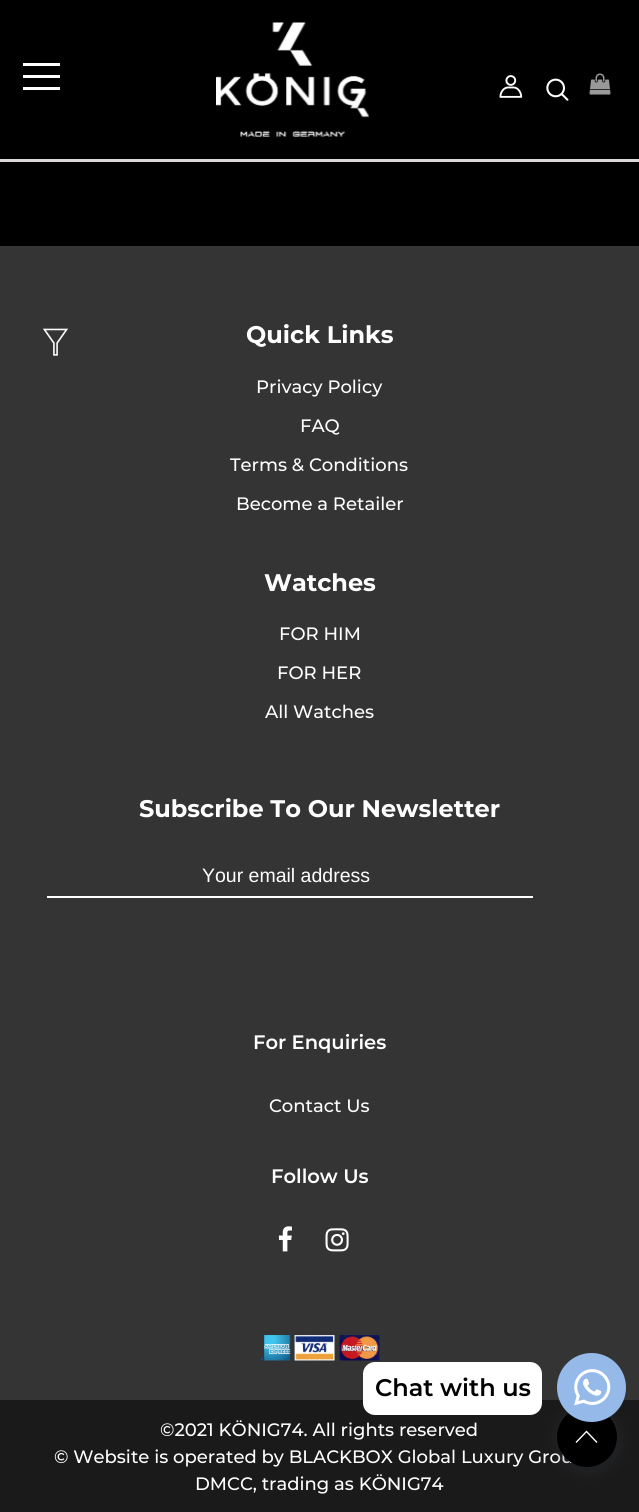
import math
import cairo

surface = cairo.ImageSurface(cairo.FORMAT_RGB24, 639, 1512)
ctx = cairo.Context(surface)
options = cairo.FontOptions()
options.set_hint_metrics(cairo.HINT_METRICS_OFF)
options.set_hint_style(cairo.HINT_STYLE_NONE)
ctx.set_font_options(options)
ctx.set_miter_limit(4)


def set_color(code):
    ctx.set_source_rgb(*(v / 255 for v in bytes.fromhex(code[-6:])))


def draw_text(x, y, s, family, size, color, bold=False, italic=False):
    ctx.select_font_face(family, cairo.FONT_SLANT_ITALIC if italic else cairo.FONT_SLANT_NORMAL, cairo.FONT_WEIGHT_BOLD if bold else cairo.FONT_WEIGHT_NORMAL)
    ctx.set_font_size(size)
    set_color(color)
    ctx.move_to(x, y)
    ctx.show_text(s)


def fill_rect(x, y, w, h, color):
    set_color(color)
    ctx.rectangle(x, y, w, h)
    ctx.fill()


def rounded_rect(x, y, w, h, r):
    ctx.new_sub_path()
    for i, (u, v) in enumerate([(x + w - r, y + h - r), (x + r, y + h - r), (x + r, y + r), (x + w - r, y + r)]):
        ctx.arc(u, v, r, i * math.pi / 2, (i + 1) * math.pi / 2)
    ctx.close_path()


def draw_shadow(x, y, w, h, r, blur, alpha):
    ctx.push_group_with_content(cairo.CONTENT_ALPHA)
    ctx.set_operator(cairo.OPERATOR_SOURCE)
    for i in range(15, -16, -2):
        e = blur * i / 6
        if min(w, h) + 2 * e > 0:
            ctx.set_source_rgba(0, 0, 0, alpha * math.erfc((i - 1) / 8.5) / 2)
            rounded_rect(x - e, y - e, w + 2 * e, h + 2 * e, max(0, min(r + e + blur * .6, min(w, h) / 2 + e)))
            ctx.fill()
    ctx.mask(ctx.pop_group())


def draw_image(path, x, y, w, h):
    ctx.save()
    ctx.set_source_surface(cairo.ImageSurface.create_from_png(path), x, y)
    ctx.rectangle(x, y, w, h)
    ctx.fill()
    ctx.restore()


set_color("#000000")
ctx.paint()
fill_rect(0, 159, 639, 3, "#dcd8d8")
fill_rect(23, 63, 37, 3, "#ffffff")
fill_rect(23, 75, 37, 3, "#ffffff")
fill_rect(23, 87, 37, 3, "#ffffff")
draw_image("assets/img1.png", 216, 22, 153, 115)
draw_image("assets/img2.png", 499, 75, 24, 23)
draw_image("assets/img3.png", 546, 78, 23, 23)
draw_image("assets/img4.png", 589, 73, 22, 22)
fill_rect(0, 246, 639, 1154, "#343434")
draw_text(246, 343, "Quick Links", "Montserrat", 24, "#ffffff", bold=True)
draw_text(256, 393, "Privacy Policy", "Montserrat Medium", 18, "#ffffff")
draw_text(300, 432, "FAQ", "Montserrat Medium", 18, "#ffffff")
draw_text(230, 471, "Terms & Conditions", "Montserrat Medium", 18, "#ffffff")
draw_text(236, 510, "Become a Retailer", "Montserrat Medium", 18, "#ffffff")
draw_text(264, 591, "Watches", "Montserrat", 24, "#ffffff", bold=True)
draw_text(279, 640, "FOR HIM", "Montserrat Medium", 18, "#ffffff")
draw_text(277, 679, "FOR HER", "Montserrat Medium", 18, "#ffffff")
draw_text(265, 718, "All Watches", "Montserrat Medium", 18, "#ffffff")
draw_text(139, 817, "Subscribe To Our Newsletter", "Montserrat", 24, "#ffffff", bold=True)
fill_rect(47, 896, 486, 2, "#ffffff")
draw_text(202, 882, "Your email address", "Liberation Sans", 19.5, "#ffffff")
draw_text(253, 1049, "For Enquiries", "Montserrat SemiBold", 19.5, "#ffffff")
draw_text(269, 1112, "Contact Us", "Montserrat Medium", 18, "#ffffff")
draw_text(271, 1183, "Follow Us", "Montserrat SemiBold", 19.5, "#ffffff")
draw_image("assets/img5.png", 278, 1226, 14, 26)
draw_image("assets/img6.png", 325, 1228, 24, 24)
draw_image("assets/img7.png", 260, 1335, 120, 26)
fill_rect(0, 1400, 639, 112, "#1a1a1a")
draw_text(160, 1436, "©2021 KÖNIG74. All rights reserved", "Montserrat Medium", 18, "#ffffff")
draw_text(54, 1463, "© Website is operated by BLACKBOX Global Luxury Grou", "Montserrat Medium", 18, "#ffffff")
draw_text(195, 1490, "DMCC, trading as KÖNIG74", "Montserrat Medium", 18, "#ffffff")
draw_image("assets/img8.png", 43, 328, 25, 28)
set_color("#353944")
draw_shadow(552, 1404, 72, 72, 36, 4.5, 0.2)
set_color("#000000")
ctx.arc(587, 1437, 30, 0, 2 * math.pi)
ctx.fill()
set_color("#ffffff")
ctx.new_path()
ctx.move_to(597.5, 1442)
ctx.line_to(596.5, 1443)
ctx.line_to(586.5, 1432.5)
ctx.line_to(576.5, 1443)
ctx.line_to(575.5, 1442)
ctx.line_to(586.5, 1430.5)
ctx.close_path()
ctx.fill()
set_color("#95bae9")
ctx.arc(591.5, 1387.5, 34.5, 0, 2 * math.pi)
ctx.fill()
set_color("#ffffff")
rounded_rect(363, 1362, 179, 53, 12)
ctx.fill()
draw_text(375, 1396, "Chat with us", "Montserrat SemiBold", 24, "#000000")
draw_image("assets/img9.png", 574, 1369, 37, 37)
surface.write_to_png("output.png")
